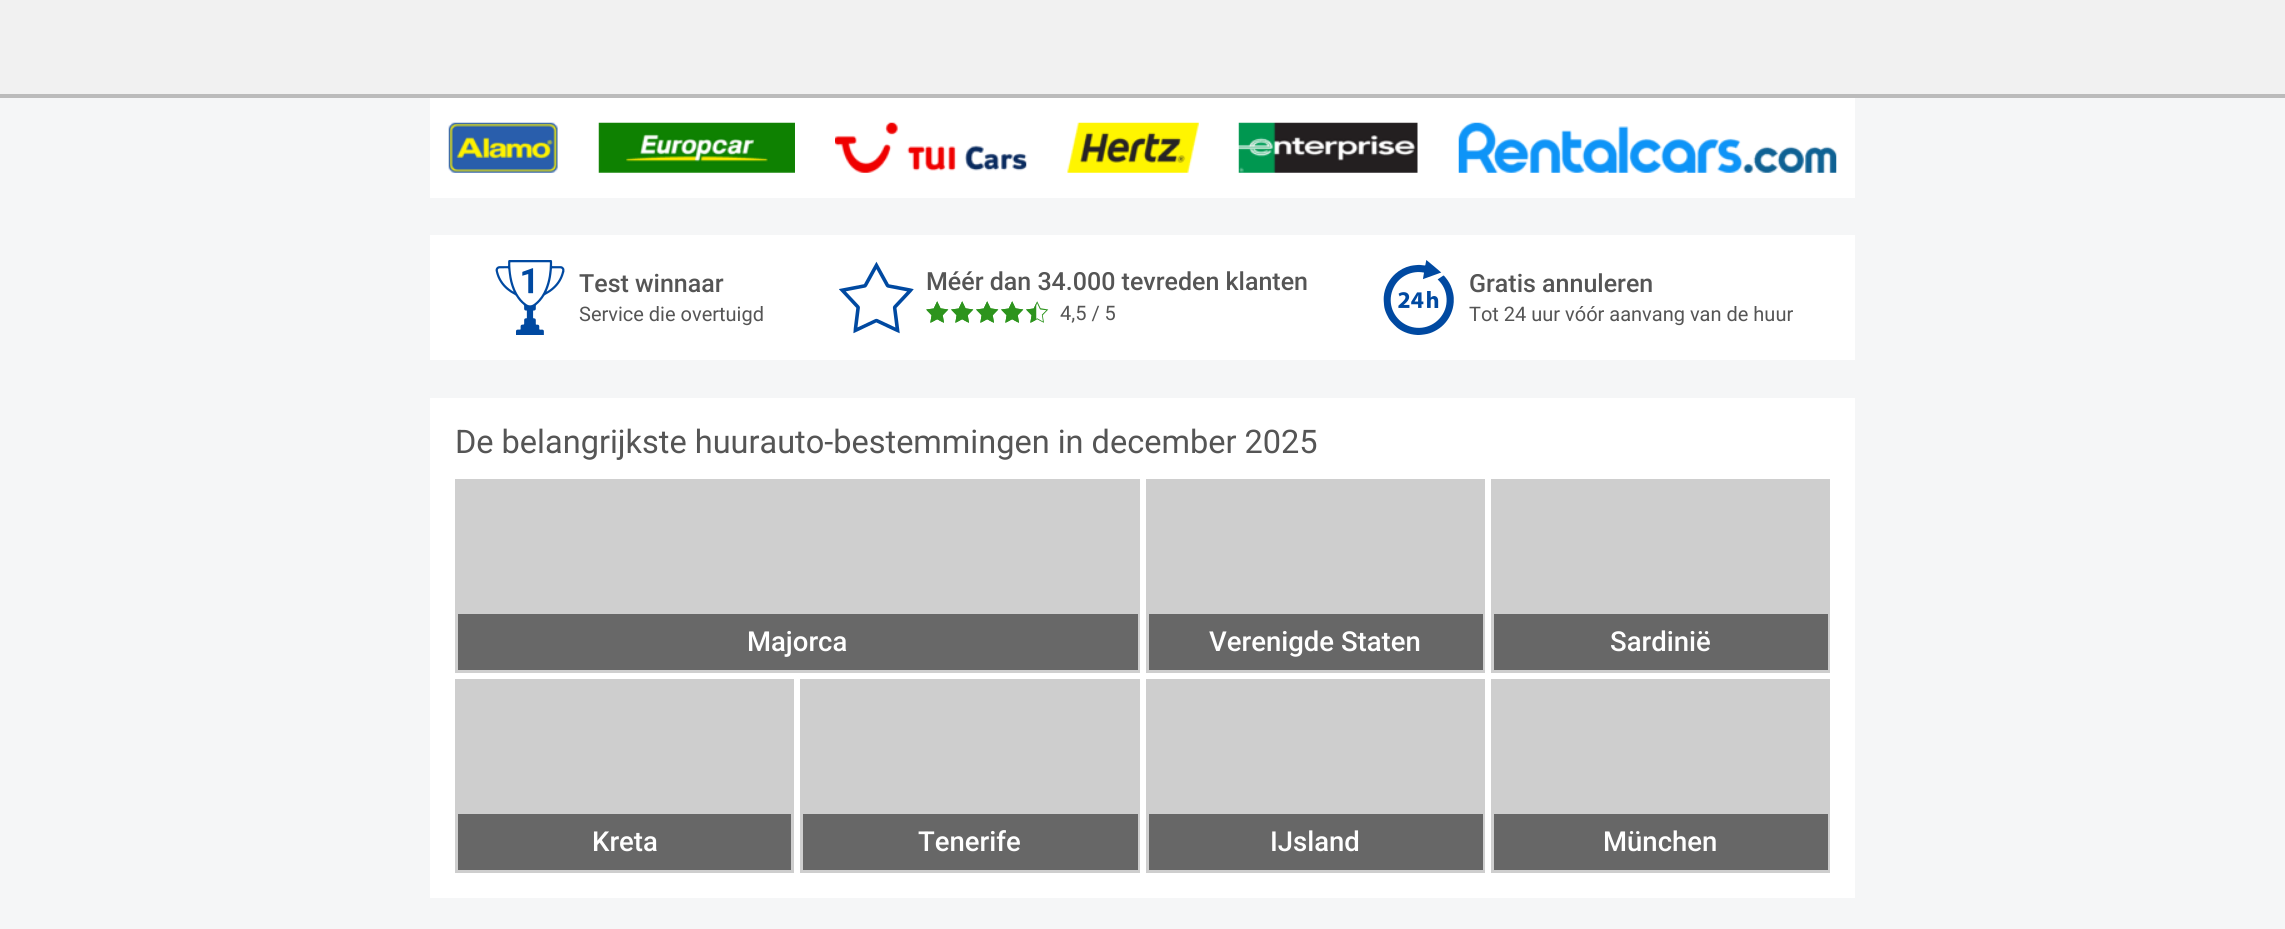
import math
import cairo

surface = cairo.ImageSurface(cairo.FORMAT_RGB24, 2285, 929)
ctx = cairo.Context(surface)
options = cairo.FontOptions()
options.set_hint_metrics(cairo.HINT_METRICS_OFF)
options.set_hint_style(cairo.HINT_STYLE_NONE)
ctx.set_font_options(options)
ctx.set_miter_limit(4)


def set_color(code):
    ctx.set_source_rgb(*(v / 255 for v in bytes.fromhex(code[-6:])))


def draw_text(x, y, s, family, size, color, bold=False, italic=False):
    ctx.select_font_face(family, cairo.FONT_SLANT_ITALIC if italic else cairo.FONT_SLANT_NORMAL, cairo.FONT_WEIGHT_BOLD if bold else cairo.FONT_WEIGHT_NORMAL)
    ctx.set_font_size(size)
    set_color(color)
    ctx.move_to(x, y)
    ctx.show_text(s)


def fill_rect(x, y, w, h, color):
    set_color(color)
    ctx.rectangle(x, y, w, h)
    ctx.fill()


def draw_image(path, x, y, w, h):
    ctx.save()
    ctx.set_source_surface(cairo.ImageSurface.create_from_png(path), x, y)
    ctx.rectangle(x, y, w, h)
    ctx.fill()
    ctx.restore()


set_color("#f5f6f7")
ctx.paint()
fill_rect(0, 94, 2285, 4, "#bbbbbb")
fill_rect(0, 0, 2285, 94, "#f1f1f1")
fill_rect(430, 98, 1425, 100, "#ffffff")
draw_image("assets/img1.png", 448, 122, 110, 51)
draw_image("assets/img2.png", 598, 122, 197, 51)
draw_image("assets/img3.png", 835, 122, 192, 51)
draw_image("assets/img4.png", 1067, 122, 132, 51)
draw_image("assets/img5.png", 1238, 122, 180, 51)
draw_image("assets/img6.png", 1458, 122, 379, 51)
fill_rect(430, 235, 1425, 125, "#ffffff")
draw_image("assets/img7.png", 495, 260, 70, 75)
draw_text(579, 292, "Test winnaar", "Roboto Medium", 25, "#555555")
draw_text(579, 321, "Service die overtuigd", "Roboto", 20, "#555555")
draw_image("assets/img8.png", 839, 261, 75, 73)
draw_text(926, 290, "Méér dan 34.000 tevreden klanten", "Roboto Medium", 25, "#555555")
draw_image("assets/img9.png", 926, 301, 123, 22)
draw_image("assets/img10.png", 926, 301, 111, 22)
draw_text(1060, 320, "4,5 / 5", "Roboto", 20, "#555555")
draw_image("assets/img11.png", 1383, 260, 71, 75)
draw_text(1469, 292, "Gratis annuleren", "Roboto Medium", 25, "#555555")
draw_text(1469, 321, "Tot 24 uur vóór aanvang van de huur", "Roboto", 20, "#555555")
fill_rect(430, 398, 1425, 500, "#ffffff")
draw_text(455, 453, "De belangrijkste huurauto-bestemmingen in december 2025", "Roboto", 32.5, "#555555")
fill_rect(455, 479, 685, 194, "#cfcfcf")
fill_rect(458, 614, 680, 56, "#686868")
draw_text(747, 651, "Majorca", "Roboto Medium", 27.5, "#ffffff")
fill_rect(1146, 479, 339, 194, "#cecece")
fill_rect(1149, 614, 334, 56, "#676767")
draw_text(1209, 651, "Verenigde Staten", "Roboto Medium", 27.5, "#ffffff")
fill_rect(1491, 479, 339, 194, "#cecece")
fill_rect(1494, 614, 334, 56, "#676767")
draw_text(1610, 651, "Sardinië", "Roboto Medium", 27.5, "#ffffff")
fill_rect(455, 679, 339, 194, "#cecece")
fill_rect(458, 814, 333, 56, "#676767")
draw_text(592, 851, "Kreta", "Roboto Medium", 27.5, "#ffffff")
fill_rect(800, 679, 340, 194, "#cecece")
fill_rect(803, 814, 335, 56, "#676767")
draw_text(918, 851, "Tenerife", "Roboto Medium", 27.5, "#ffffff")
fill_rect(1146, 679, 339, 194, "#cecece")
fill_rect(1149, 814, 334, 56, "#676767")
draw_text(1270, 851, "IJsland", "Roboto Medium", 27.5, "#ffffff")
fill_rect(1491, 679, 339, 194, "#cecece")
fill_rect(1494, 814, 334, 56, "#676767")
draw_text(1603, 851, "München", "Roboto Medium", 27.5, "#ffffff")
surface.write_to_png("output.png")
